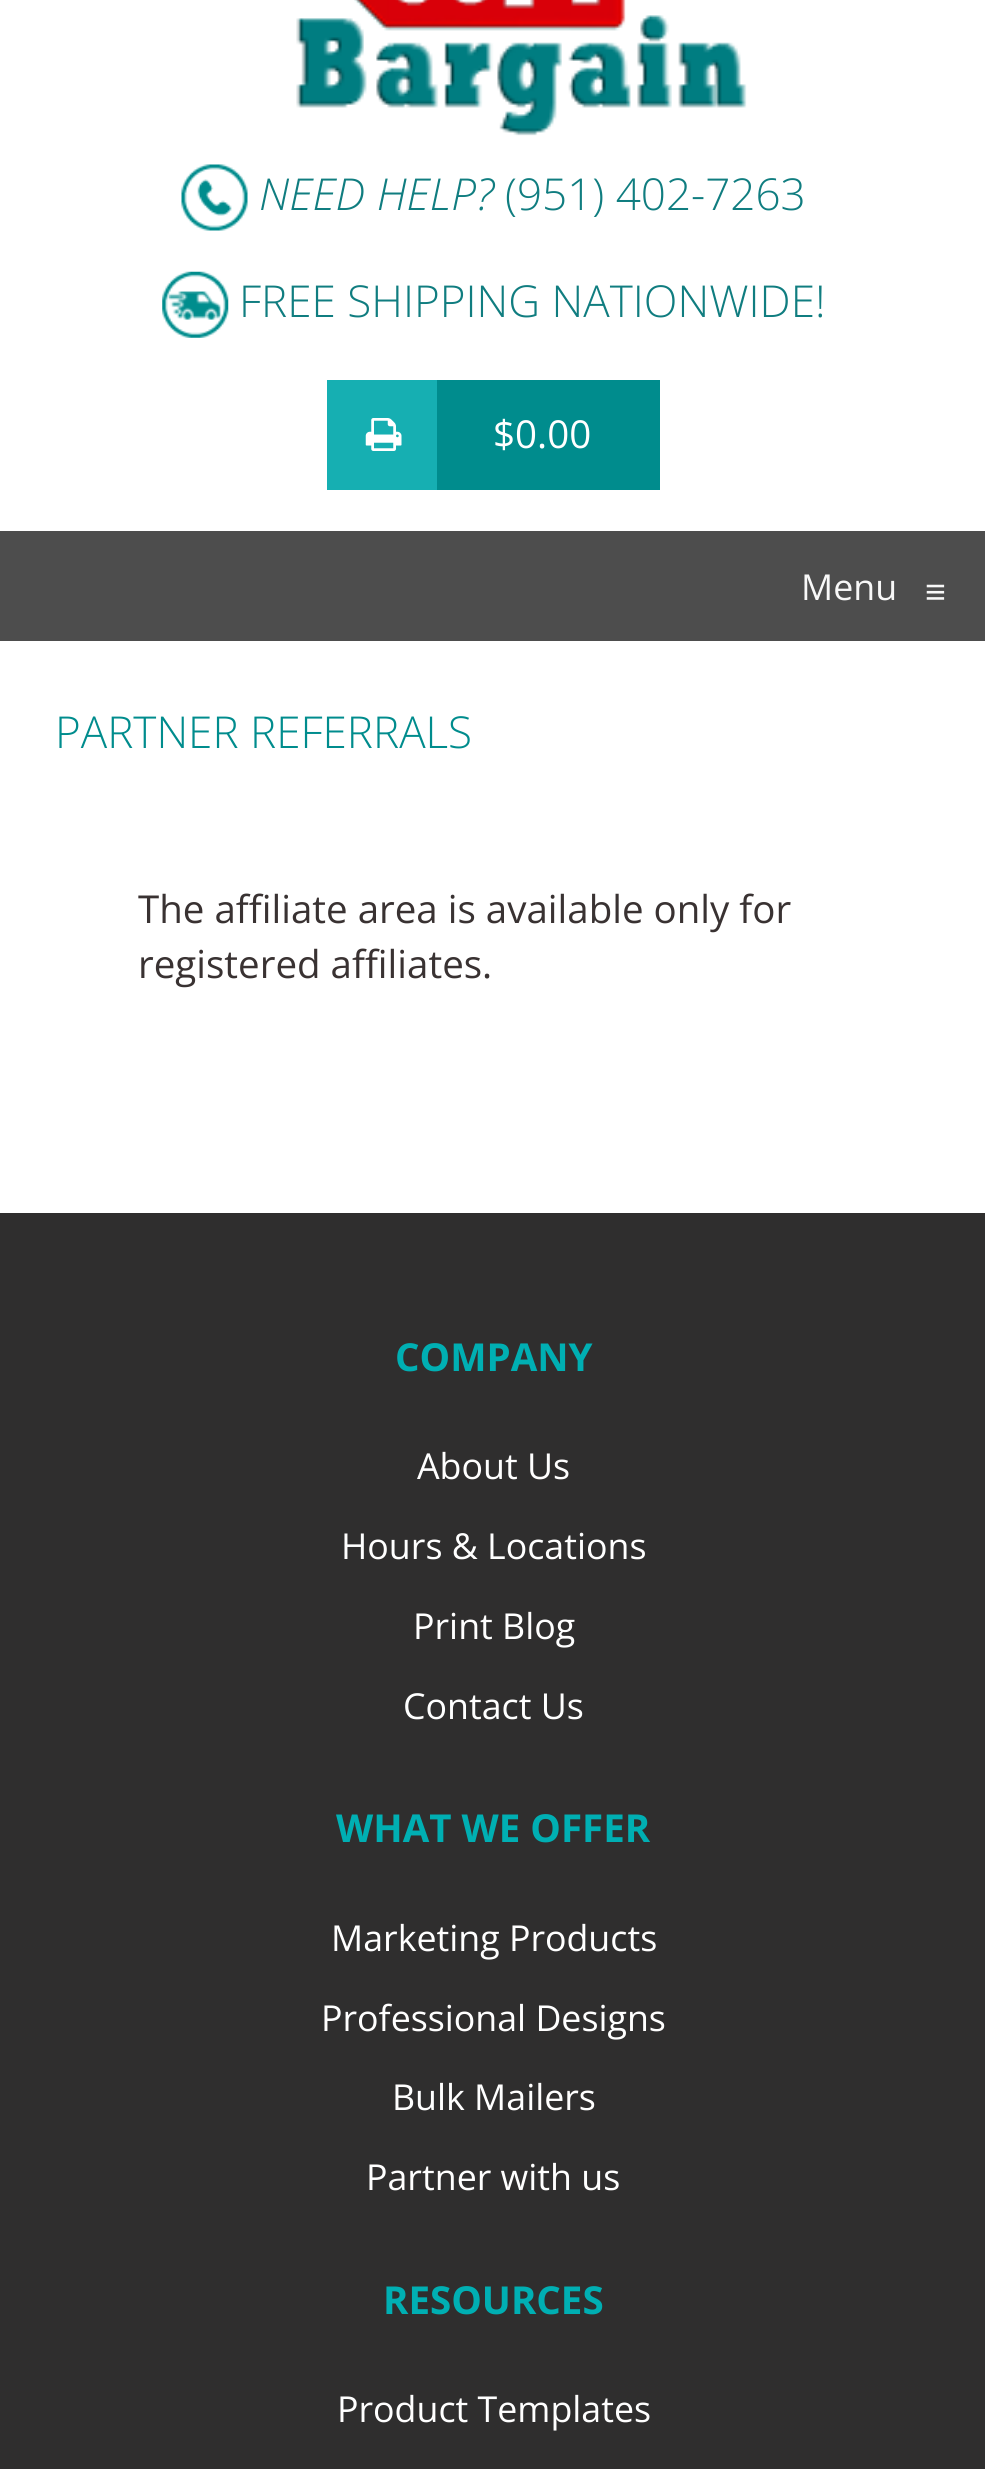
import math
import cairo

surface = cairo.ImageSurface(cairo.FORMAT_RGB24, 985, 2469)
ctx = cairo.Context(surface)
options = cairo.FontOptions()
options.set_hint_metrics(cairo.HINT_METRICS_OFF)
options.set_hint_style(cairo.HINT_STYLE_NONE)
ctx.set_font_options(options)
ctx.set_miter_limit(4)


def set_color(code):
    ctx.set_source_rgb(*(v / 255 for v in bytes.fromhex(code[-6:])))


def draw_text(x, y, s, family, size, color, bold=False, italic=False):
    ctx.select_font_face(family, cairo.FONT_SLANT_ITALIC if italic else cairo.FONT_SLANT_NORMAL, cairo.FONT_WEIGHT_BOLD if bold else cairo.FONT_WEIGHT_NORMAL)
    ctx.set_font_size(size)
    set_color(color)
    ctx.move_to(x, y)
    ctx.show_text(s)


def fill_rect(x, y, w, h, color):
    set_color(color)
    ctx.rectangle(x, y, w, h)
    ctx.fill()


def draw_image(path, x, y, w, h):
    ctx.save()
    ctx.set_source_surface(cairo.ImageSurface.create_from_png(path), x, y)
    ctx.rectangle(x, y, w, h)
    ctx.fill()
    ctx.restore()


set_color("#ffffff")
ctx.paint()
draw_image("assets/img1.png", 296, 0, 451, 136)
draw_image("assets/img2.png", 181, 164, 67, 67)
draw_text(259, 210, "NEED HELP?", "Open Sans Light", 44, "#107d80", italic=True)
draw_text(505, 210, "(951) 402-7263", "Open Sans Light", 44, "#107d80")
draw_image("assets/img3.png", 162, 271, 67, 67)
draw_text(239, 317, "FREE SHIPPING NATIONWIDE!", "Open Sans Light", 44, "#107d80")
fill_rect(327, 380, 110, 110, "#16afb2")
draw_image("assets/img4.png", 365, 418, 37, 33)
fill_rect(437, 380, 223, 110, "#008c8d")
draw_text(493, 448, "$0.00", "Open Sans", 38.5, "#ffffff")
fill_rect(0, 531, 985, 110, "#4d4d4d")
draw_text(801, 600, "Menu", "Open Sans", 35.75, "#f8f8f8")
draw_text(925, 604, "≡", "Liberation Sans", 35.75, "#f8f8f8")
draw_text(55, 748, "PARTNER REFERRALS", "Open Sans Light", 44, "#008c8d")
draw_text(138, 923, "The affiliate area is available only for", "Open Sans", 38.5, "#393232")
draw_text(138, 978, "registered affiliates.", "Open Sans", 38.5, "#393232")
fill_rect(0, 1213, 985, 1256, "#2f2e2e")
draw_text(395, 1371, "COMPANY", "Open Sans", 38.5, "#00afb3", bold=True)
draw_text(417, 1479, "About Us", "Open Sans", 35.75, "#ffffff")
draw_text(341, 1559, "Hours & Locations", "Open Sans", 35.75, "#ffffff")
draw_text(413, 1639, "Print Blog", "Open Sans", 35.75, "#ffffff")
draw_text(403, 1719, "Contact Us", "Open Sans", 35.75, "#ffffff")
draw_text(336, 1842, "WHAT WE OFFER", "Open Sans", 38.5, "#00afb3", bold=True)
draw_text(331, 1951, "Marketing Products", "Open Sans", 35.75, "#ffffff")
draw_text(321, 2031, "Professional Designs", "Open Sans", 35.75, "#ffffff")
draw_text(392, 2110, "Bulk Mailers", "Open Sans", 35.75, "#ffffff")
draw_text(366, 2190, "Partner with us", "Open Sans", 35.75, "#ffffff")
draw_text(383, 2314, "RESOURCES", "Open Sans", 38.5, "#00afb3", bold=True)
draw_text(337, 2422, "Product Templates", "Open Sans", 35.75, "#ffffff")
surface.write_to_png("output.png")
